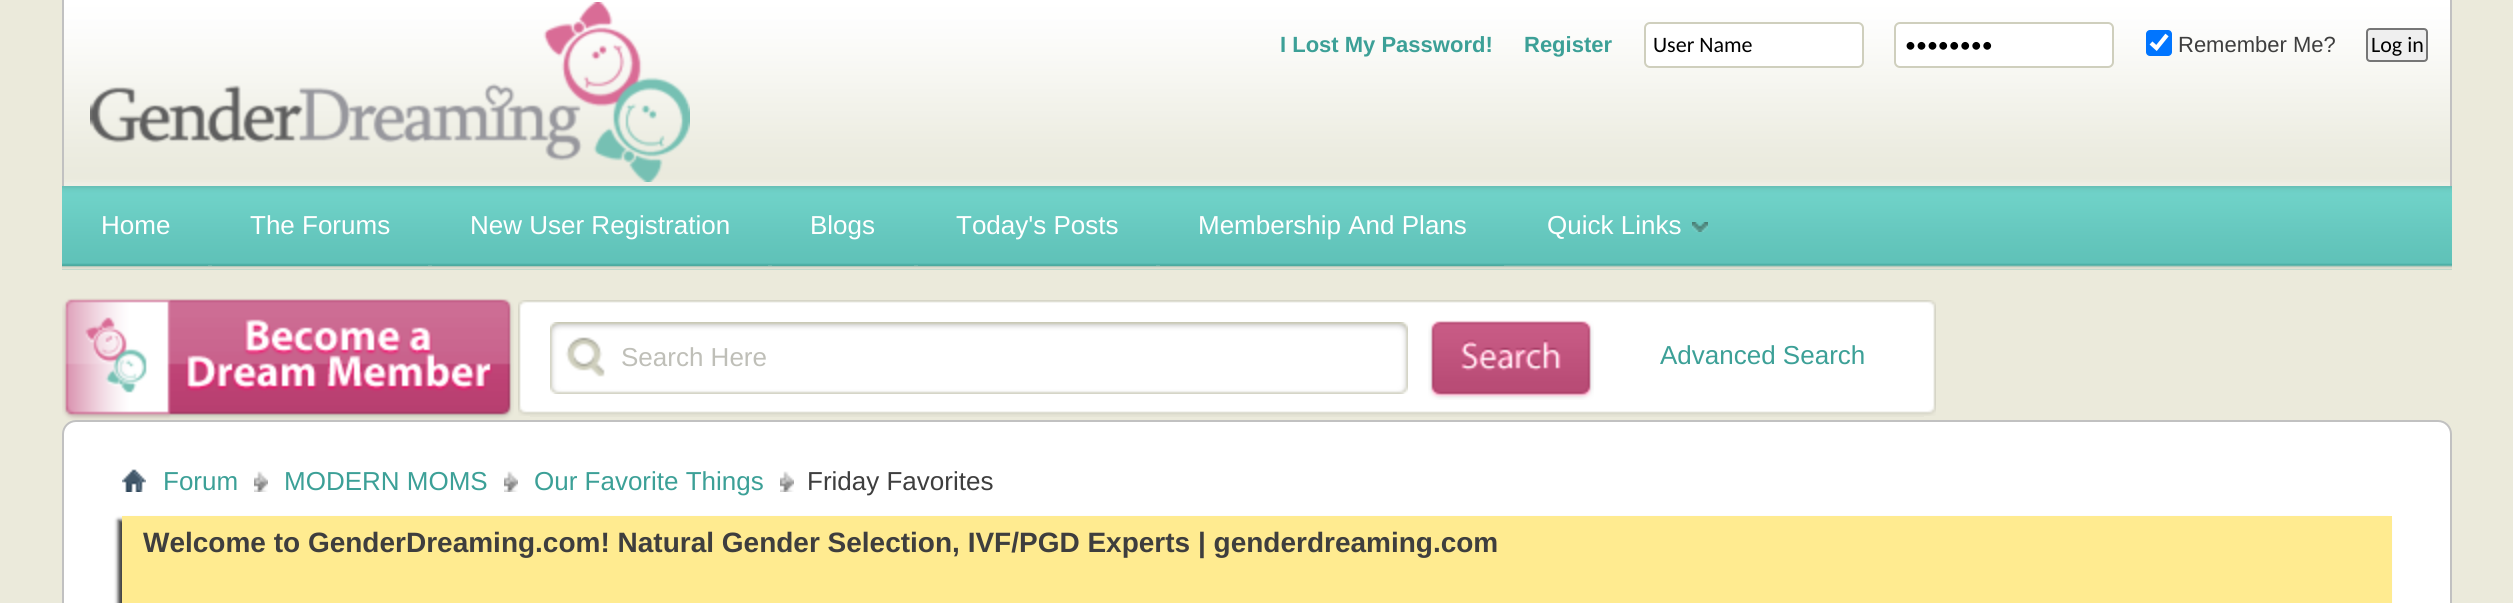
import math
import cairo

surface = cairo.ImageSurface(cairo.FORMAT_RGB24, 2513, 603)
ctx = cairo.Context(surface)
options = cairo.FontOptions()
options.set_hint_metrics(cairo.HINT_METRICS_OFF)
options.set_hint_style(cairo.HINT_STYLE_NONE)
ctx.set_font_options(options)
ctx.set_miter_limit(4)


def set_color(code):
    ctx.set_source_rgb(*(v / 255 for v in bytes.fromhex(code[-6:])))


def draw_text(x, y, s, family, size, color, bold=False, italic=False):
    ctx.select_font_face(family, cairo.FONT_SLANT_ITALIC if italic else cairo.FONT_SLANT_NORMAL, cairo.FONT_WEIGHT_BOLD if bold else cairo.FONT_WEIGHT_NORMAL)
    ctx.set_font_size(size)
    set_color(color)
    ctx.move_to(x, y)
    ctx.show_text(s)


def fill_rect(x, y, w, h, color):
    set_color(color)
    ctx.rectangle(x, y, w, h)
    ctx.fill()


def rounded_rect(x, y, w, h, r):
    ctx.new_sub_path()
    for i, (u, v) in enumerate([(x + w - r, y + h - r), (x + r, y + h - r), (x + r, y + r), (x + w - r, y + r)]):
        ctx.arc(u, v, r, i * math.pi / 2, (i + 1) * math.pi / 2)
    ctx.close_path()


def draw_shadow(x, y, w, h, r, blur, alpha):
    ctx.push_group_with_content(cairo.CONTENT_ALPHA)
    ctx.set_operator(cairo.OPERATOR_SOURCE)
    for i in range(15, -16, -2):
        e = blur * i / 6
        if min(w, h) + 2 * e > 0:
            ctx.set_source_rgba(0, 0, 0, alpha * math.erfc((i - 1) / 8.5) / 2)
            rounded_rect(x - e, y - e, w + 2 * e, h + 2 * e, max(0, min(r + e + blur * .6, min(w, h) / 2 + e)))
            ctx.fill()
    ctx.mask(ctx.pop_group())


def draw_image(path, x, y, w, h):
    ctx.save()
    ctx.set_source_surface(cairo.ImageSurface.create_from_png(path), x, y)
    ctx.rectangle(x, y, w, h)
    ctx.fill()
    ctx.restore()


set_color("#ebeadb")
ctx.paint()
draw_image("assets/img1.png", 64, 0, 2386, 186)
fill_rect(2450, 0, 2, 186, "#c1c1c1")
fill_rect(62, 0, 2, 186, "#c1c1c1")
draw_image("assets/img2.png", 90, 2, 600, 180)
draw_text(1280, 52, "I Lost My Password!", "Liberation Sans", 22, "#3ca097", bold=True)
draw_text(1524, 52, "Register", "Liberation Sans", 22, "#3ca097", bold=True)
set_color("#ffffff")
rounded_rect(1645, 23, 218, 44, 5)
ctx.fill_preserve()
set_color("#cfcfbd")
ctx.stroke()
draw_text(1653, 52, "User Name", "Carlito", 22, "#000000")
set_color("#ffffff")
rounded_rect(1895, 23, 218, 44, 5)
ctx.fill_preserve()
set_color("#cfcfbd")
ctx.stroke()
draw_text(1905, 52, "••••••••", "Carlito", 22, "#000000")
set_color("#0075ff")
rounded_rect(2146, 30, 26, 26, 4)
ctx.fill()
ctx.new_path()
ctx.move_to(2151, 43)
ctx.line_to(2156.5, 48)
ctx.line_to(2167, 35)
set_color("#ffffff")
ctx.set_line_width(4.2)
ctx.stroke()
draw_text(2178, 52, "Remember Me?", "Liberation Sans", 22, "#3e3e3e")
set_color("#efefef")
rounded_rect(2367, 29, 60, 32, 3)
ctx.fill_preserve()
set_color("#767676")
ctx.set_line_width(2)
ctx.stroke()
draw_text(2371, 52, "Log in", "Carlito", 22, "#000000")
draw_image("assets/img3.png", 62, 186, 2390, 84)
fill_rect(62, 265, 146, 1, "#4eaa9e")
draw_text(101, 234, "Home", "Liberation Sans", 26, "#ffffff")
fill_rect(212, 265, 216, 1, "#4eaa9e")
draw_text(250, 234, "The Forums", "Liberation Sans", 26, "#ffffff")
fill_rect(432, 265, 336, 1, "#4eaa9e")
draw_text(470, 234, "New User Registration", "Liberation Sans", 26, "#ffffff")
fill_rect(772, 265, 142, 1, "#4eaa9e")
draw_text(810, 234, "Blogs", "Liberation Sans", 26, "#ffffff")
fill_rect(918, 265, 238, 1, "#4eaa9e")
draw_text(956, 234, "Today's Posts", "Liberation Sans", 26, "#ffffff")
fill_rect(1160, 265, 344, 1, "#4eaa9e")
draw_text(1198, 234, "Membership And Plans", "Liberation Sans", 26, "#ffffff")
draw_text(1547, 234, "Quick Links", "Liberation Sans", 26, "#ffffff")
draw_image("assets/img4.png", 1692, 222, 16, 10)
draw_image("assets/img5.png", 62, 298, 452, 122)
draw_image("assets/img6.png", 518, 300, 12, 116)
draw_image("assets/img7.png", 1924, 300, 12, 116)
draw_image("assets/img8.png", 530, 300, 1394, 117)
draw_image("assets/img9.png", 550, 322, 858, 72)
draw_text(621, 366, "Search Here", "Liberation Sans", 26, "#bfbfb8")
draw_image("assets/img10.png", 1428, 320, 166, 80)
draw_text(1660, 364, "Advanced Search", "Liberation Sans", 26, "#3ca097")
set_color("#ffffff")
rounded_rect(63, 421, 2388, 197, 13)
ctx.fill_preserve()
set_color("#c1c1c1")
ctx.stroke()
draw_image("assets/img11.png", 122, 469, 24, 23)
draw_image("assets/img12.png", 254, 471, 14, 21)
draw_text(163, 490, "Forum", "Liberation Sans", 26, "#3ca097")
draw_image("assets/img12.png", 504, 471, 14, 21)
draw_text(284, 490, "MODERN MOMS", "Liberation Sans", 26, "#3ca097")
draw_image("assets/img12.png", 780, 471, 14, 21)
draw_text(534, 490, "Our Favorite Things", "Liberation Sans", 26, "#3ca097")
draw_text(807, 490, "Friday Favorites", "Liberation Sans", 26, "#3e3e3e")
set_color("#3e3e3e")
draw_shadow(118, 520, 2270, 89, 0, 2, 1)
fill_rect(122, 516, 2270, 87, "#ffeb90")
draw_text(143, 552, "Welcome to GenderDreaming.com! Natural Gender Selection, IVF/PGD Experts | genderdreaming.com", "Liberation Sans", 28, "#3e3e3e", bold=True)
surface.write_to_png("output.png")
